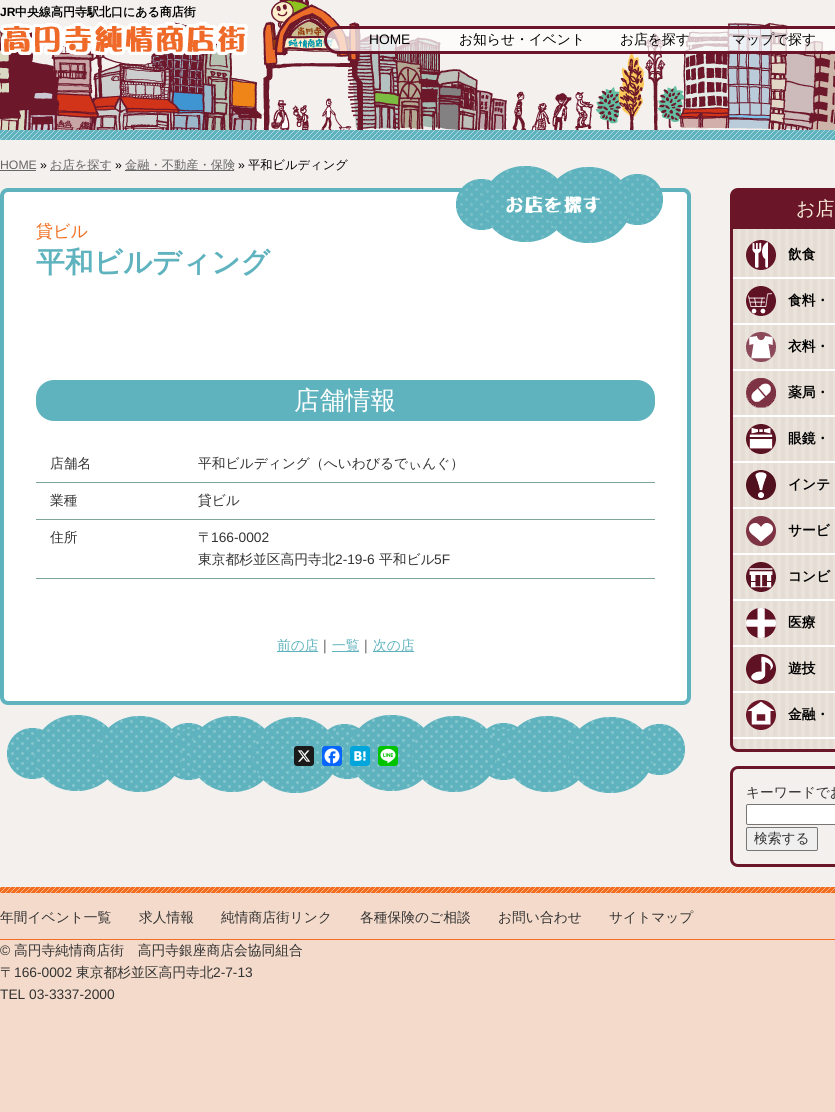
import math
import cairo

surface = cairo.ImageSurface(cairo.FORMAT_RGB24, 835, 1112)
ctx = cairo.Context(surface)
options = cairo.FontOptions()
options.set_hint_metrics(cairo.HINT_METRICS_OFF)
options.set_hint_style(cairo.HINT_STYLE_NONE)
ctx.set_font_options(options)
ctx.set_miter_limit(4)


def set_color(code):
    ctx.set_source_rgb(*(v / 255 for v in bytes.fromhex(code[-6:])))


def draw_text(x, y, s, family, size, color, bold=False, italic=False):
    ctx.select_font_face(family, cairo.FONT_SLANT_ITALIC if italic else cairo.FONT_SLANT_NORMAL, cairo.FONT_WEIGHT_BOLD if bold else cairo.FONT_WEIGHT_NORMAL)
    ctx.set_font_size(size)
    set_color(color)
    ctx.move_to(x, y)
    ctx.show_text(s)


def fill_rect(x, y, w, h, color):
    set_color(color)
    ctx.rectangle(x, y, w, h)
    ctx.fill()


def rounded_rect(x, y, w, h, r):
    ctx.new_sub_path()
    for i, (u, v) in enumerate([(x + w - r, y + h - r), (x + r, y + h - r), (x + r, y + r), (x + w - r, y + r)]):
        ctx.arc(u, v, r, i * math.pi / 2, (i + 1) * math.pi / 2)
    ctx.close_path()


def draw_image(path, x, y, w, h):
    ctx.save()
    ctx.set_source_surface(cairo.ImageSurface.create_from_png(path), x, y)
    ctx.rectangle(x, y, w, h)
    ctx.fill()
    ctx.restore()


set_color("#f3daca")
ctx.paint()
fill_rect(0, 0, 835, 887, "#f3f0ed")
draw_image("assets/img1.png", 0, 0, 835, 130)
draw_image("assets/img2.png", 0, 130, 835, 10)
draw_text(0, 16, "JR", "Liberation Sans", 12, "#000000", bold=True)
draw_text(15, 16, "中央線高円寺駅北口にある商店街", "WenQuanYi Zen Hei", 12, "#000000", bold=True)
draw_image("assets/img3.png", 0, 22, 248, 33)
draw_image("assets/img4.png", 324, 26, 511, 28)
rounded_rect(325.5, 27.5, 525, 25, 12.5)
set_color("#6b1329")
ctx.set_line_width(3)
ctx.stroke()
draw_text(369, 44, "HOME", "Liberation Sans", 13.75, "#000000")
draw_text(459, 44, "お知らせ・イベント", "WenQuanYi Zen Hei Medium", 13.75, "#000000")
draw_text(620, 44, "お店を探す", "WenQuanYi Zen Hei Medium", 13.75, "#000000")
draw_text(732, 44, "マップで探す", "WenQuanYi Zen Hei Medium", 13.75, "#000000")
draw_text(0, 169, "HOME", "Liberation Sans", 12.25, "#666666")
fill_rect(0, 170, 36, 1, "#666666")
draw_text(40, 169, "»", "Liberation Sans", 12.25, "#000000")
fill_rect(50, 170, 61, 1, "#666666")
draw_text(50, 169, "お店を探す", "WenQuanYi Zen Hei Medium", 12.25, "#666666")
draw_text(115, 169, "»", "Liberation Sans", 12.25, "#000000")
fill_rect(125, 170, 109, 1, "#666666")
draw_text(125, 169, "金融・不動産・保険", "WenQuanYi Zen Hei Medium", 12.25, "#666666")
draw_text(238, 169, "»", "Liberation Sans", 12.25, "#000000")
draw_text(248, 169, "平和ビルディング", "WenQuanYi Zen Hei Medium", 12.25, "#000000")
set_color("#ffffff")
rounded_rect(2, 190, 687, 513, 6)
ctx.fill_preserve()
set_color("#5fb3be")
ctx.set_line_width(4)
ctx.stroke()
draw_image("assets/img5.png", 456, 166, 207, 77)
draw_text(36, 237, "貸ビル", "WenQuanYi Zen Hei Medium", 17, "#f26e21")
draw_text(36, 272, "平和ビルディング", "WenQuanYi Zen Hei", 28.75, "#5fb3be", bold=True)
rounded_rect(36, 380, 619, 41, 18)
ctx.fill()
draw_text(294, 409, "店舗情報", "WenQuanYi Zen Hei Medium", 25.5, "#ffffff")
fill_rect(36, 482, 619, 1, "#7da696")
draw_text(50, 468, "店舗名", "WenQuanYi Zen Hei Medium", 13.75, "#333333")
draw_text(198, 468, "平和ビルディング（へいわびるでぃんぐ）", "WenQuanYi Zen Hei Medium", 13.75, "#333333")
fill_rect(36, 519, 619, 1, "#7da696")
draw_text(50, 505, "業種", "WenQuanYi Zen Hei Medium", 13.75, "#333333")
draw_text(198, 505, "貸ビル", "WenQuanYi Zen Hei Medium", 13.75, "#333333")
fill_rect(36, 578, 619, 1, "#7da696")
draw_text(50, 542, "住所", "WenQuanYi Zen Hei Medium", 13.75, "#333333")
draw_text(198, 542, "〒", "WenQuanYi Zen Hei Medium", 13.75, "#333333")
draw_text(211, 542, "166-0002", "Liberation Sans", 13.75, "#333333")
draw_text(198, 564, "東京都杉並区高円寺北", "WenQuanYi Zen Hei Medium", 13.75, "#333333")
draw_text(335, 564, "2-19-6", "Liberation Sans", 13.75, "#333333")
draw_text(379, 564, "平和ビル", "WenQuanYi Zen Hei Medium", 13.75, "#333333")
draw_text(434, 564, "5F", "Liberation Sans", 13.75, "#333333")
fill_rect(277, 651, 41, 1, "#5fb3be")
draw_text(277, 650, "前の店", "WenQuanYi Zen Hei Medium", 13.75, "#5fb3be")
draw_text(318, 650, "｜", "WenQuanYi Zen Hei Medium", 13.75, "#333333")
fill_rect(332, 651, 27, 1, "#5fb3be")
draw_text(332, 650, "一覧", "WenQuanYi Zen Hei Medium", 13.75, "#5fb3be")
draw_text(359, 650, "｜", "WenQuanYi Zen Hei Medium", 13.75, "#333333")
fill_rect(373, 651, 41, 1, "#5fb3be")
draw_text(373, 650, "次の店", "WenQuanYi Zen Hei Medium", 13.75, "#5fb3be")
draw_image("assets/img6.png", 7, 715, 678, 78)
set_color("#1a1a1a")
rounded_rect(294, 746, 20, 20, 3)
ctx.fill()
draw_image("assets/img7.png", 297, 750, 14, 12)
set_color("#0866ff")
rounded_rect(322, 746, 20, 20, 3)
ctx.fill()
draw_image("assets/img8.png", 324, 748, 16, 16)
set_color("#00a6db")
rounded_rect(350, 746, 20, 20, 3)
ctx.fill()
draw_image("assets/img9.png", 354, 751, 12, 10)
set_color("#00c300")
rounded_rect(378, 746, 20, 20, 3)
ctx.fill()
draw_image("assets/img10.png", 380, 748, 16, 16)
draw_image("assets/img11.png", 730, 188, 105, 564)
rounded_rect(731.5, 189.5, 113, 561, 6.5)
set_color("#6a1528")
ctx.set_line_width(3)
ctx.stroke()
fill_rect(733, 191, 102, 38, "#6a1528")
draw_text(796, 215, "お店", "WenQuanYi Zen Hei Medium", 19, "#f8edd9")
draw_image("assets/img12.png", 746, 240, 30, 30)
fill_rect(733, 277, 102, 2, "#ffffff")
draw_text(788, 259, "飲食", "WenQuanYi Zen Hei", 13.75, "#000000", bold=True)
draw_image("assets/img13.png", 746, 286, 30, 30)
fill_rect(733, 323, 102, 2, "#ffffff")
draw_text(788, 305, "食料・", "WenQuanYi Zen Hei", 13.75, "#000000", bold=True)
draw_image("assets/img14.png", 746, 332, 30, 30)
fill_rect(733, 369, 102, 2, "#ffffff")
draw_text(788, 351, "衣料・", "WenQuanYi Zen Hei", 13.75, "#000000", bold=True)
draw_image("assets/img15.png", 746, 378, 30, 30)
fill_rect(733, 415, 102, 2, "#ffffff")
draw_text(788, 397, "薬局・", "WenQuanYi Zen Hei", 13.75, "#000000", bold=True)
draw_image("assets/img16.png", 746, 424, 30, 30)
fill_rect(733, 461, 102, 2, "#ffffff")
draw_text(788, 443, "眼鏡・", "WenQuanYi Zen Hei", 13.75, "#000000", bold=True)
draw_image("assets/img17.png", 746, 470, 30, 30)
fill_rect(733, 507, 102, 2, "#ffffff")
draw_text(788, 489, "インテ", "WenQuanYi Zen Hei", 13.75, "#000000", bold=True)
draw_image("assets/img18.png", 746, 516, 30, 30)
fill_rect(733, 553, 102, 2, "#ffffff")
draw_text(788, 535, "サービ", "WenQuanYi Zen Hei", 13.75, "#000000", bold=True)
draw_image("assets/img19.png", 746, 562, 30, 30)
fill_rect(733, 599, 102, 2, "#ffffff")
draw_text(788, 581, "コンビ", "WenQuanYi Zen Hei", 13.75, "#000000", bold=True)
draw_image("assets/img20.png", 746, 608, 30, 30)
fill_rect(733, 645, 102, 2, "#ffffff")
draw_text(788, 627, "医療", "WenQuanYi Zen Hei", 13.75, "#000000", bold=True)
draw_image("assets/img21.png", 746, 654, 30, 30)
fill_rect(733, 691, 102, 2, "#ffffff")
draw_text(788, 673, "遊技", "WenQuanYi Zen Hei", 13.75, "#000000", bold=True)
draw_image("assets/img22.png", 746, 700, 30, 30)
fill_rect(733, 737, 102, 2, "#ffffff")
draw_text(788, 719, "金融・", "WenQuanYi Zen Hei", 13.75, "#000000", bold=True)
rounded_rect(731.5, 767.5, 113, 98, 6.5)
set_color("#6a1528")
ctx.stroke()
draw_text(746, 797, "キーワードでお", "WenQuanYi Zen Hei Medium", 13.75, "#333333")
set_color("#ffffff")
rounded_rect(746.5, 804.5, 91, 20, 1.5)
ctx.fill_preserve()
set_color("#767676")
ctx.set_line_width(1)
ctx.stroke()
set_color("#efefef")
rounded_rect(746.5, 827.5, 71, 23, 1.5)
ctx.fill_preserve()
set_color("#767676")
ctx.stroke()
draw_text(754, 843, "検索する", "WenQuanYi Zen Hei Medium", 13.75, "#333333")
draw_image("assets/img23.png", 0, 887, 835, 6)
fill_rect(0, 939, 835, 1, "#f26d20")
draw_text(0, 922, "年間イベント一覧", "WenQuanYi Zen Hei Medium", 13.75, "#333333")
draw_text(139, 922, "求人情報", "WenQuanYi Zen Hei Medium", 13.75, "#333333")
draw_text(221, 922, "純情商店街リンク", "WenQuanYi Zen Hei Medium", 13.75, "#333333")
draw_text(360, 922, "各種保険のご相談", "WenQuanYi Zen Hei Medium", 13.75, "#333333")
draw_text(498, 922, "お問い合わせ", "WenQuanYi Zen Hei Medium", 13.75, "#333333")
draw_text(609, 922, "サイトマップ", "WenQuanYi Zen Hei Medium", 13.75, "#333333")
draw_text(0, 955, "©", "Liberation Sans", 13.75, "#333333")
draw_text(14, 955, "高円寺純情商店街　高円寺銀座商店会協同組合", "WenQuanYi Zen Hei Medium", 13.75, "#333333")
draw_text(0, 977, "〒", "WenQuanYi Zen Hei Medium", 13.75, "#333333")
draw_text(14, 977, "166-0002", "Liberation Sans", 13.75, "#333333")
draw_text(76, 977, "東京都杉並区高円寺北", "WenQuanYi Zen Hei Medium", 13.75, "#333333")
draw_text(213, 977, "2-7-13", "Liberation Sans", 13.75, "#333333")
draw_text(0, 999, "TEL 03-3337-2000", "Liberation Sans", 13.75, "#333333")
surface.write_to_png("output.png")
